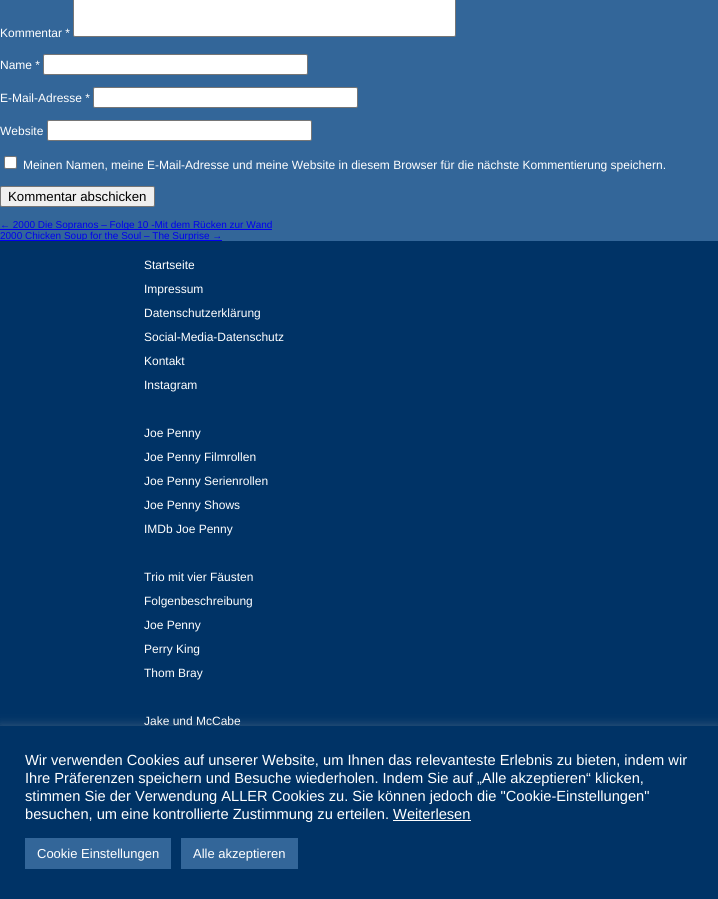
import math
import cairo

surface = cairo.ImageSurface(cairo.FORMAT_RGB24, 718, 899)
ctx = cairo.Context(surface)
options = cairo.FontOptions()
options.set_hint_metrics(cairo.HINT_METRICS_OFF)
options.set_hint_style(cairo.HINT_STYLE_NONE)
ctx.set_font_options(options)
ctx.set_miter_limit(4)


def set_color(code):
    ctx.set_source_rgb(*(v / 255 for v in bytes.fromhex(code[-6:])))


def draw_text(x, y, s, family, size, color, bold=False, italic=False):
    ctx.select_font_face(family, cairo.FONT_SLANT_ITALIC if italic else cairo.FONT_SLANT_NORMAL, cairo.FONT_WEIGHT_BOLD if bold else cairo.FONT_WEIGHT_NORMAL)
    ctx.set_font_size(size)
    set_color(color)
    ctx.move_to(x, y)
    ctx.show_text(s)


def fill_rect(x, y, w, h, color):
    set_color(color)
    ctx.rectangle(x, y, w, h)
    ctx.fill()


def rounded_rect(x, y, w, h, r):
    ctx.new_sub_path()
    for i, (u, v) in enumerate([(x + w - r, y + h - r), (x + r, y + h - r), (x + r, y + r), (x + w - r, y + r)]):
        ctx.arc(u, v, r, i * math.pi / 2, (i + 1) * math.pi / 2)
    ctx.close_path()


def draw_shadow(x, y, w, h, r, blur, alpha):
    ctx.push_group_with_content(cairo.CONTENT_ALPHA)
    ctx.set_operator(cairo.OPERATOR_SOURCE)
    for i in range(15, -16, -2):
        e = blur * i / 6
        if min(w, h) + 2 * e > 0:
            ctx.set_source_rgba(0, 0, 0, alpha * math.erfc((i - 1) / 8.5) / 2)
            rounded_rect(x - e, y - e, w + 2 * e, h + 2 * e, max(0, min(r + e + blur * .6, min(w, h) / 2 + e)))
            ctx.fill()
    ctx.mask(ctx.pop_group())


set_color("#336699")
ctx.paint()
draw_text(0, 37, "Kommentar *", "Liberation Sans", 12, "#ffffff")
rounded_rect(73.5, -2.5, 382, 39, 1.5)
ctx.fill_preserve()
set_color("#767676")
ctx.set_line_width(1)
ctx.stroke()
draw_text(0, 69, "Name *", "Liberation Sans", 12, "#ffffff")
rounded_rect(43.5, 54.5, 264, 20, 1.5)
ctx.fill_preserve()
set_color("#767676")
ctx.stroke()
draw_text(0, 102, "E-Mail-Adresse *", "Liberation Sans", 12, "#ffffff")
rounded_rect(93.5, 87.5, 264, 20, 1.5)
ctx.fill_preserve()
set_color("#767676")
ctx.stroke()
draw_text(0, 135, "Website", "Liberation Sans", 12, "#ffffff")
rounded_rect(47.5, 120.5, 264, 20, 1.5)
ctx.fill_preserve()
set_color("#767676")
ctx.stroke()
set_color("#ffffff")
rounded_rect(4.5, 156.5, 12, 12, 1.5)
ctx.fill_preserve()
set_color("#767676")
ctx.stroke()
draw_text(23, 169, "Meinen Namen, meine E-Mail-Adresse und meine Website in diesem Browser für die nächste Kommentierung speichern.", "Liberation Sans", 12, "#ffffff")
set_color("#efefef")
rounded_rect(0.5, 186.5, 154, 20, 1.5)
ctx.fill_preserve()
set_color("#767676")
ctx.stroke()
draw_text(8, 201, "Kommentar abschicken", "Liberation Sans", 13.25, "#000000")
fill_rect(0, 229, 272, 1, "#0000ee")
draw_text(0, 228, "← 2000 Die Sopranos – Folge 10 -Mit dem Rücken zur Wand", "Liberation Sans", 10, "#0000ee")
fill_rect(0, 240, 222, 1, "#0000ee")
fill_rect(0, 241, 718, 485, "#003366")
draw_text(0, 239, "2000 Chicken Soup for the Soul – The Surprise →", "Liberation Sans", 10, "#0000ee")
draw_text(144, 269, "Startseite", "Liberation Sans", 12, "#ffffff")
draw_text(144, 293, "Impressum", "Liberation Sans", 12, "#ffffff")
draw_text(144, 317, "Datenschutzerklärung", "Liberation Sans", 12, "#ffffff")
draw_text(144, 341, "Social-Media-Datenschutz", "Liberation Sans", 12, "#ffffff")
draw_text(144, 365, "Kontakt", "Liberation Sans", 12, "#ffffff")
draw_text(144, 389, "Instagram", "Liberation Sans", 12, "#ffffff")
draw_text(144, 437, "Joe Penny", "Liberation Sans", 12, "#ffffff")
draw_text(144, 461, "Joe Penny Filmrollen", "Liberation Sans", 12, "#ffffff")
draw_text(144, 485, "Joe Penny Serienrollen", "Liberation Sans", 12, "#ffffff")
draw_text(144, 509, "Joe Penny Shows", "Liberation Sans", 12, "#ffffff")
draw_text(144, 533, "IMDb Joe Penny", "Liberation Sans", 12, "#ffffff")
draw_text(144, 581, "Trio mit vier Fäusten", "Liberation Sans", 12, "#ffffff")
draw_text(144, 605, "Folgenbeschreibung", "Liberation Sans", 12, "#ffffff")
draw_text(144, 629, "Joe Penny", "Liberation Sans", 12, "#ffffff")
draw_text(144, 653, "Perry King", "Liberation Sans", 12, "#ffffff")
draw_text(144, 677, "Thom Bray", "Liberation Sans", 12, "#ffffff")
draw_text(144, 725, "Jake und McCabe", "Liberation Sans", 12, "#ffffff")
set_color("#acabab")
draw_shadow(0, 725, 718, 173, 0, 5, 0.3)
fill_rect(0, 726, 718, 173, "#003366")
draw_text(25, 765, "Wir verwenden Cookies auf unserer Website, um Ihnen das relevanteste Erlebnis zu bieten, indem wir", "Liberation Sans", 14.65, "#ffffff")
draw_text(25, 783, "Ihre Präferenzen speichern und Besuche wiederholen. Indem Sie auf „Alle akzeptieren“ klicken,", "Liberation Sans", 14.65, "#ffffff")
draw_text(25, 801, "stimmen Sie der Verwendung ALLER Cookies zu. Sie können jedoch die \"Cookie-Einstellungen\"", "Liberation Sans", 14.65, "#ffffff")
draw_text(25, 819, "besuchen, um eine kontrollierte Zustimmung zu erteilen. Weiterlesen", "Liberation Sans", 14.65, "#ffffff")
fill_rect(393, 820, 78, 1, "#ffffff")
fill_rect(25, 838, 146, 31, "#336699")
draw_text(37, 858, "Cookie Einstellungen", "Liberation Sans", 13, "#ffffff")
fill_rect(181, 838, 117, 31, "#336699")
draw_text(193, 858, "Alle akzeptieren", "Liberation Sans", 13, "#ffffff")
surface.write_to_png("output.png")
